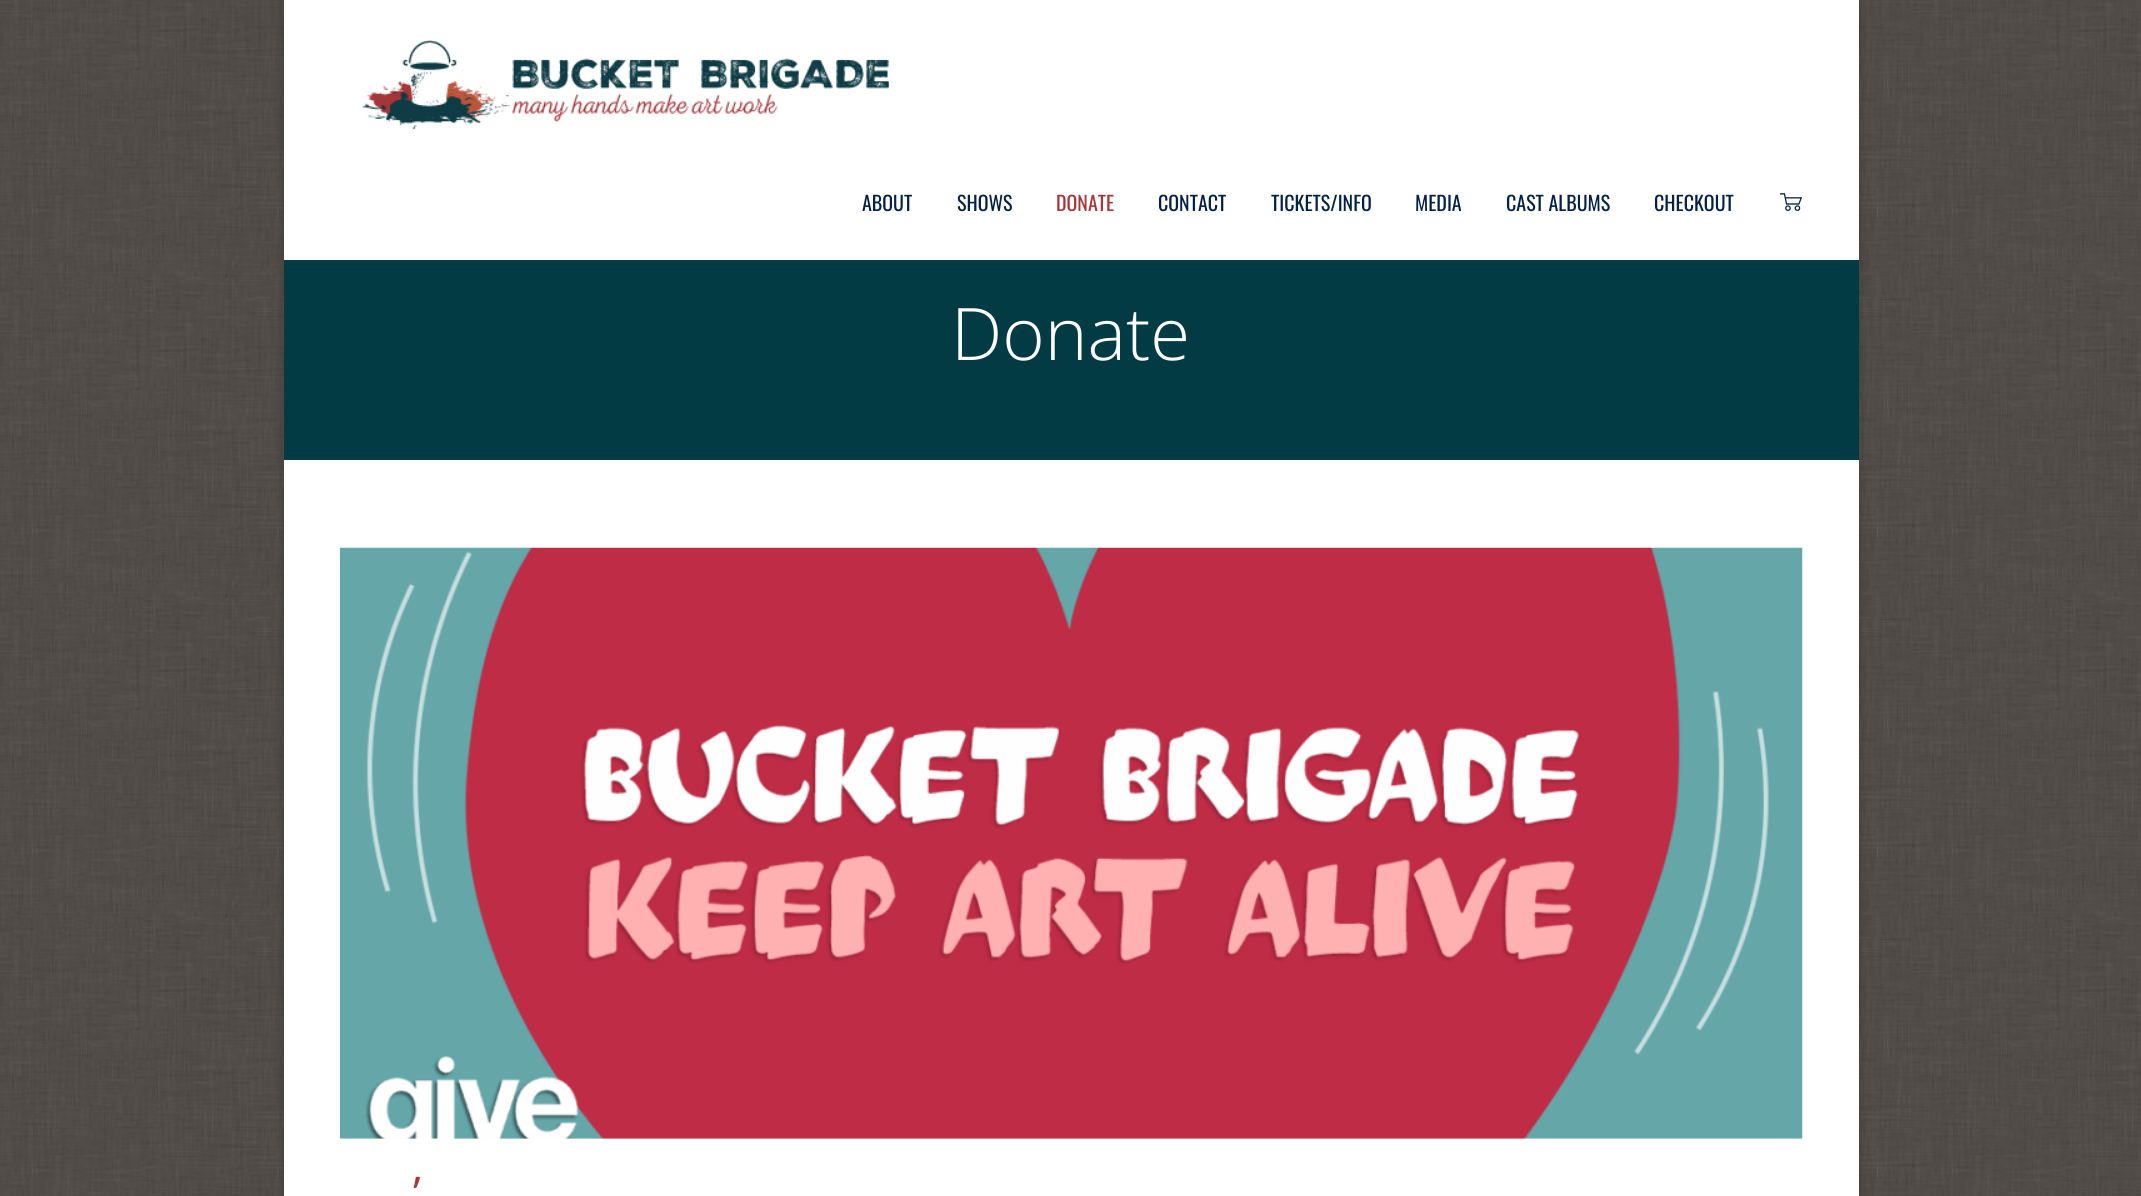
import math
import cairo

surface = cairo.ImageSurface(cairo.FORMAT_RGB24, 2141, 1196)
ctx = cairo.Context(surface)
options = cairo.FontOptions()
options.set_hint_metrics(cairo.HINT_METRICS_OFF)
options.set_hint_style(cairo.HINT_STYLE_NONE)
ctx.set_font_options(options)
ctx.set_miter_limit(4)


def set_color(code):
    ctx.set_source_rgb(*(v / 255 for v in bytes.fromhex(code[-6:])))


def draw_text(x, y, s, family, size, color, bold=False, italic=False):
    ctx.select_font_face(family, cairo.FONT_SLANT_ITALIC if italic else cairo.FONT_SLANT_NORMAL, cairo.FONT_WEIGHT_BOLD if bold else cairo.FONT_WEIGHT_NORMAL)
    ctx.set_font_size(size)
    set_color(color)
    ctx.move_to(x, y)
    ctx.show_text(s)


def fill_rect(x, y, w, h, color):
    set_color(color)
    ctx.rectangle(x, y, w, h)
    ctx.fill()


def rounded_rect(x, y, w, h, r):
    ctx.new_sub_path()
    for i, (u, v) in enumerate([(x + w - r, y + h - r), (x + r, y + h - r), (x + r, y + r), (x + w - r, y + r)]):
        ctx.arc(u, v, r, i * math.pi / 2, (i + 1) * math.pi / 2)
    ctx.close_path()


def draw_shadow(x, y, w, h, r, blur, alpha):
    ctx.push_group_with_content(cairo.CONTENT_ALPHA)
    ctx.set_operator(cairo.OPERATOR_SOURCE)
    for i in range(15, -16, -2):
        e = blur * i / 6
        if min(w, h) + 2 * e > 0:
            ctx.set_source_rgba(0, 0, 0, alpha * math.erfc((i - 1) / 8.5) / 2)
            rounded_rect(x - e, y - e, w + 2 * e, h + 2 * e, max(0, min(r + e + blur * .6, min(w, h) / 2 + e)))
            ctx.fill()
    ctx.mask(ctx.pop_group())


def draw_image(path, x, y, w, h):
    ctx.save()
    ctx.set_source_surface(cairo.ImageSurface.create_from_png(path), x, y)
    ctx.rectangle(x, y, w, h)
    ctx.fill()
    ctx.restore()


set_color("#ffffff")
ctx.paint()
draw_image("assets/img1.png", 0, 0, 2141, 1196)
set_color("#000000")
draw_shadow(284, 0, 1575, 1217, 0, 7, 0.2)
fill_rect(284, 0, 1575, 260, "#ffffff")
draw_image("assets/img2.png", 362, 40, 528, 90)
draw_text(862, 211, "ABOUT", "Oswald", 20, "#032144")
draw_text(957, 211, "SHOWS", "Oswald", 20, "#032144")
draw_text(1056, 211, "DONATE", "Oswald", 20, "#a53639")
draw_text(1158, 211, "CONTACT", "Oswald", 20, "#032144")
draw_text(1271, 211, "TICKETS/INFO", "Oswald", 20, "#032144")
draw_text(1415, 211, "MEDIA", "Oswald", 20, "#032144")
draw_text(1506, 211, "CAST ALBUMS", "Oswald", 20, "#032144")
draw_text(1654, 211, "CHECKOUT", "Oswald", 20, "#032144")
draw_image("assets/img3.png", 1780, 193, 22, 18)
fill_rect(284, 260, 1575, 200, "#033b44")
draw_text(951, 360, "Donate", "Open Sans Light", 72.5, "#ffffff")
fill_rect(284, 460, 1575, 736, "#ffffff")
draw_image("assets/img4.png", 340, 547, 1463, 592)
draw_text(413, 1209, "’", "Open Sans", 45, "#a53639")
surface.write_to_png("output.png")
